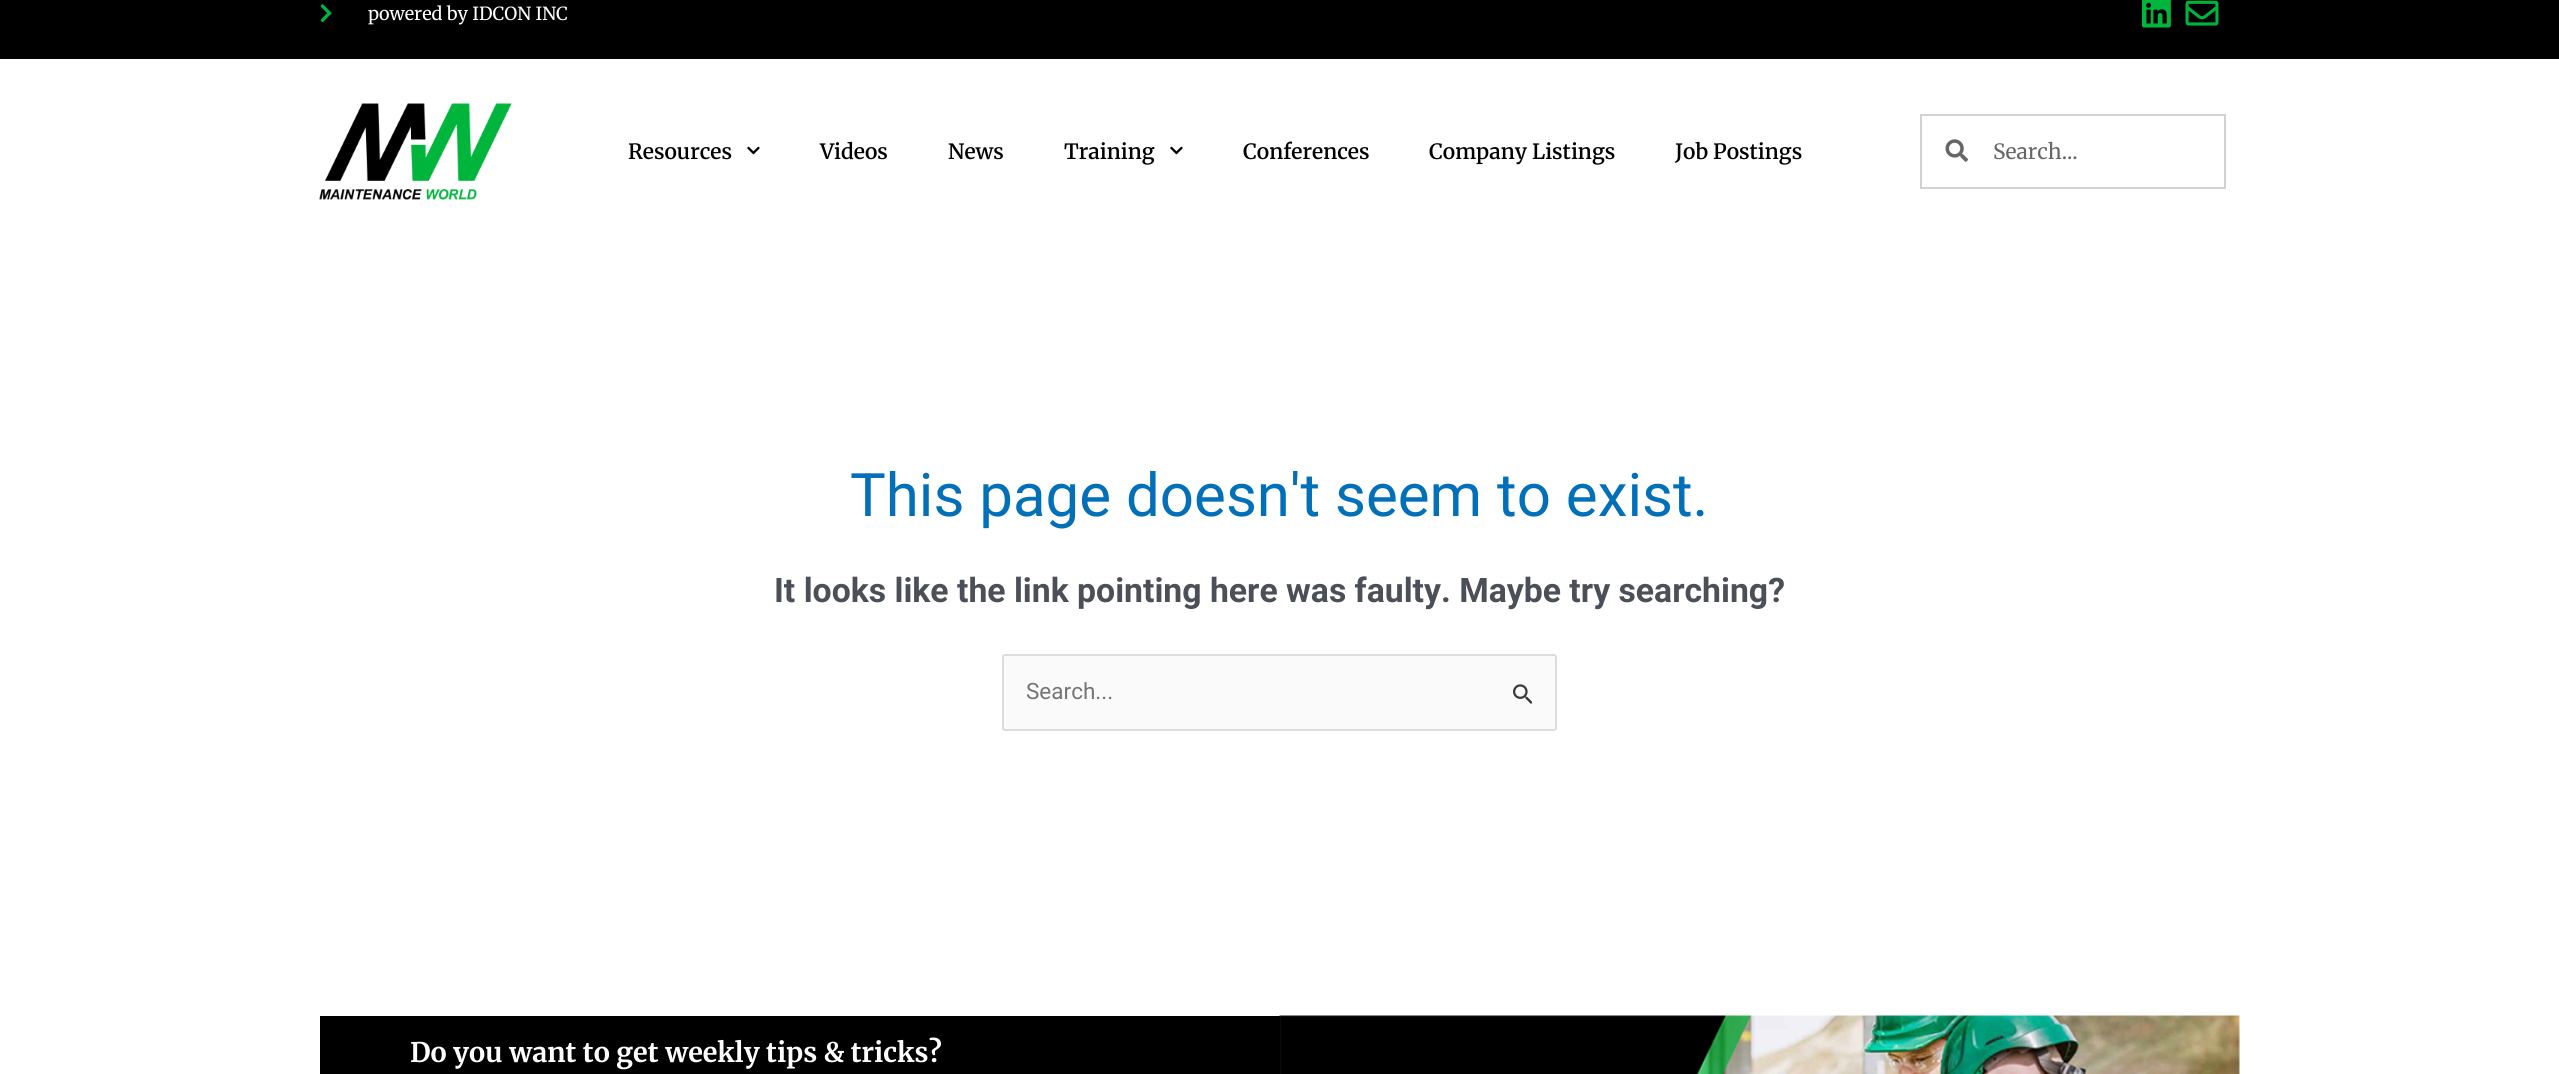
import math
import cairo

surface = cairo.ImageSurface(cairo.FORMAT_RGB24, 2559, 1074)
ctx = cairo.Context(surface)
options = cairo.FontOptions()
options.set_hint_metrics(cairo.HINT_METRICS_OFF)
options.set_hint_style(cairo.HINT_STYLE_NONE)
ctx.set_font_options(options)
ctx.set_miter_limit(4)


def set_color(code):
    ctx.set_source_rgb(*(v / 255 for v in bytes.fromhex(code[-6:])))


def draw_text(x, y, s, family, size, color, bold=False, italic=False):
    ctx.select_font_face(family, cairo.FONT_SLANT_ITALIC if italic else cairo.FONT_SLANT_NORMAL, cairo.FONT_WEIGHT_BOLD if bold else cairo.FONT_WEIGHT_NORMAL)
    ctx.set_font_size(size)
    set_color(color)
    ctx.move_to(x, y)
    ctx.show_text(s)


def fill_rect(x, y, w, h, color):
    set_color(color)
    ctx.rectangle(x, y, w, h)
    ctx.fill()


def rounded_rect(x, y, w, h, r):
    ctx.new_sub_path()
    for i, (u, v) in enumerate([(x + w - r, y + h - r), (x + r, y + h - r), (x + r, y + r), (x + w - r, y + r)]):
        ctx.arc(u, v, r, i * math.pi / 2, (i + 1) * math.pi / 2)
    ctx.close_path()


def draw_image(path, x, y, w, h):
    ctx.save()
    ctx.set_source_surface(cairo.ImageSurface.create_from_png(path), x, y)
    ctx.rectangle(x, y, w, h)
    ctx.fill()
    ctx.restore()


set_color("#ffffff")
ctx.paint()
fill_rect(0, 0, 2559, 59, "#000000")
draw_image("assets/img1.png", 320, 4, 12, 19)
draw_text(368, 20, "powered by IDCON INC", "Merriweather", 18, "#ffffff")
draw_image("assets/img2.png", 2142, 0, 29, 28)
draw_image("assets/img3.png", 2185, 0, 34, 26)
draw_image("assets/img4.png", 319, 103, 193, 97)
draw_text(628, 159, "Resources", "Merriweather SemiBold", 21, "#000000")
draw_image("assets/img5.png", 747, 146, 13, 9)
draw_text(820, 159, "Videos", "Merriweather SemiBold", 21, "#000000")
draw_text(948, 159, "News", "Merriweather SemiBold", 21, "#000000")
draw_text(1064, 159, "Training", "Merriweather SemiBold", 21, "#000000")
draw_image("assets/img5.png", 1170, 146, 13, 9)
draw_text(1243, 159, "Conferences", "Merriweather SemiBold", 21, "#000000")
draw_text(1429, 159, "Company Listings", "Merriweather SemiBold", 21, "#000000")
draw_text(1675, 159, "Job Postings", "Merriweather SemiBold", 21, "#000000")
ctx.rectangle(1921, 115, 304, 73)
set_color("#d2d2d2")
ctx.stroke()
draw_image("assets/img6.png", 1945, 139, 23, 23)
draw_text(1993, 159, "Search...", "Merriweather", 21, "#666666")
draw_text(850, 516, "This page doesn't seem to exist.", "Roboto", 60, "#0170b9")
draw_text(774, 602, "It looks like the link pointing here was faulty. Maybe try searching?", "Roboto", 33.75, "#4b4f58", bold=True)
set_color("#fafafa")
rounded_rect(1003, 655, 553, 75, 2)
ctx.fill_preserve()
set_color("#dddddd")
ctx.stroke()
draw_text(1026, 699, "Search...", "Roboto", 22.5, "#757575")
draw_image("assets/img7.png", 1513, 684, 19, 20)
fill_rect(320, 1016, 960, 58, "#000000")
draw_text(410, 1062, "Do you want to get weekly tips & tricks?", "Merriweather", 27, "#ffffff", bold=True)
draw_image("assets/img8.png", 1279, 1015, 961, 59)
surface.write_to_png("output.png")
